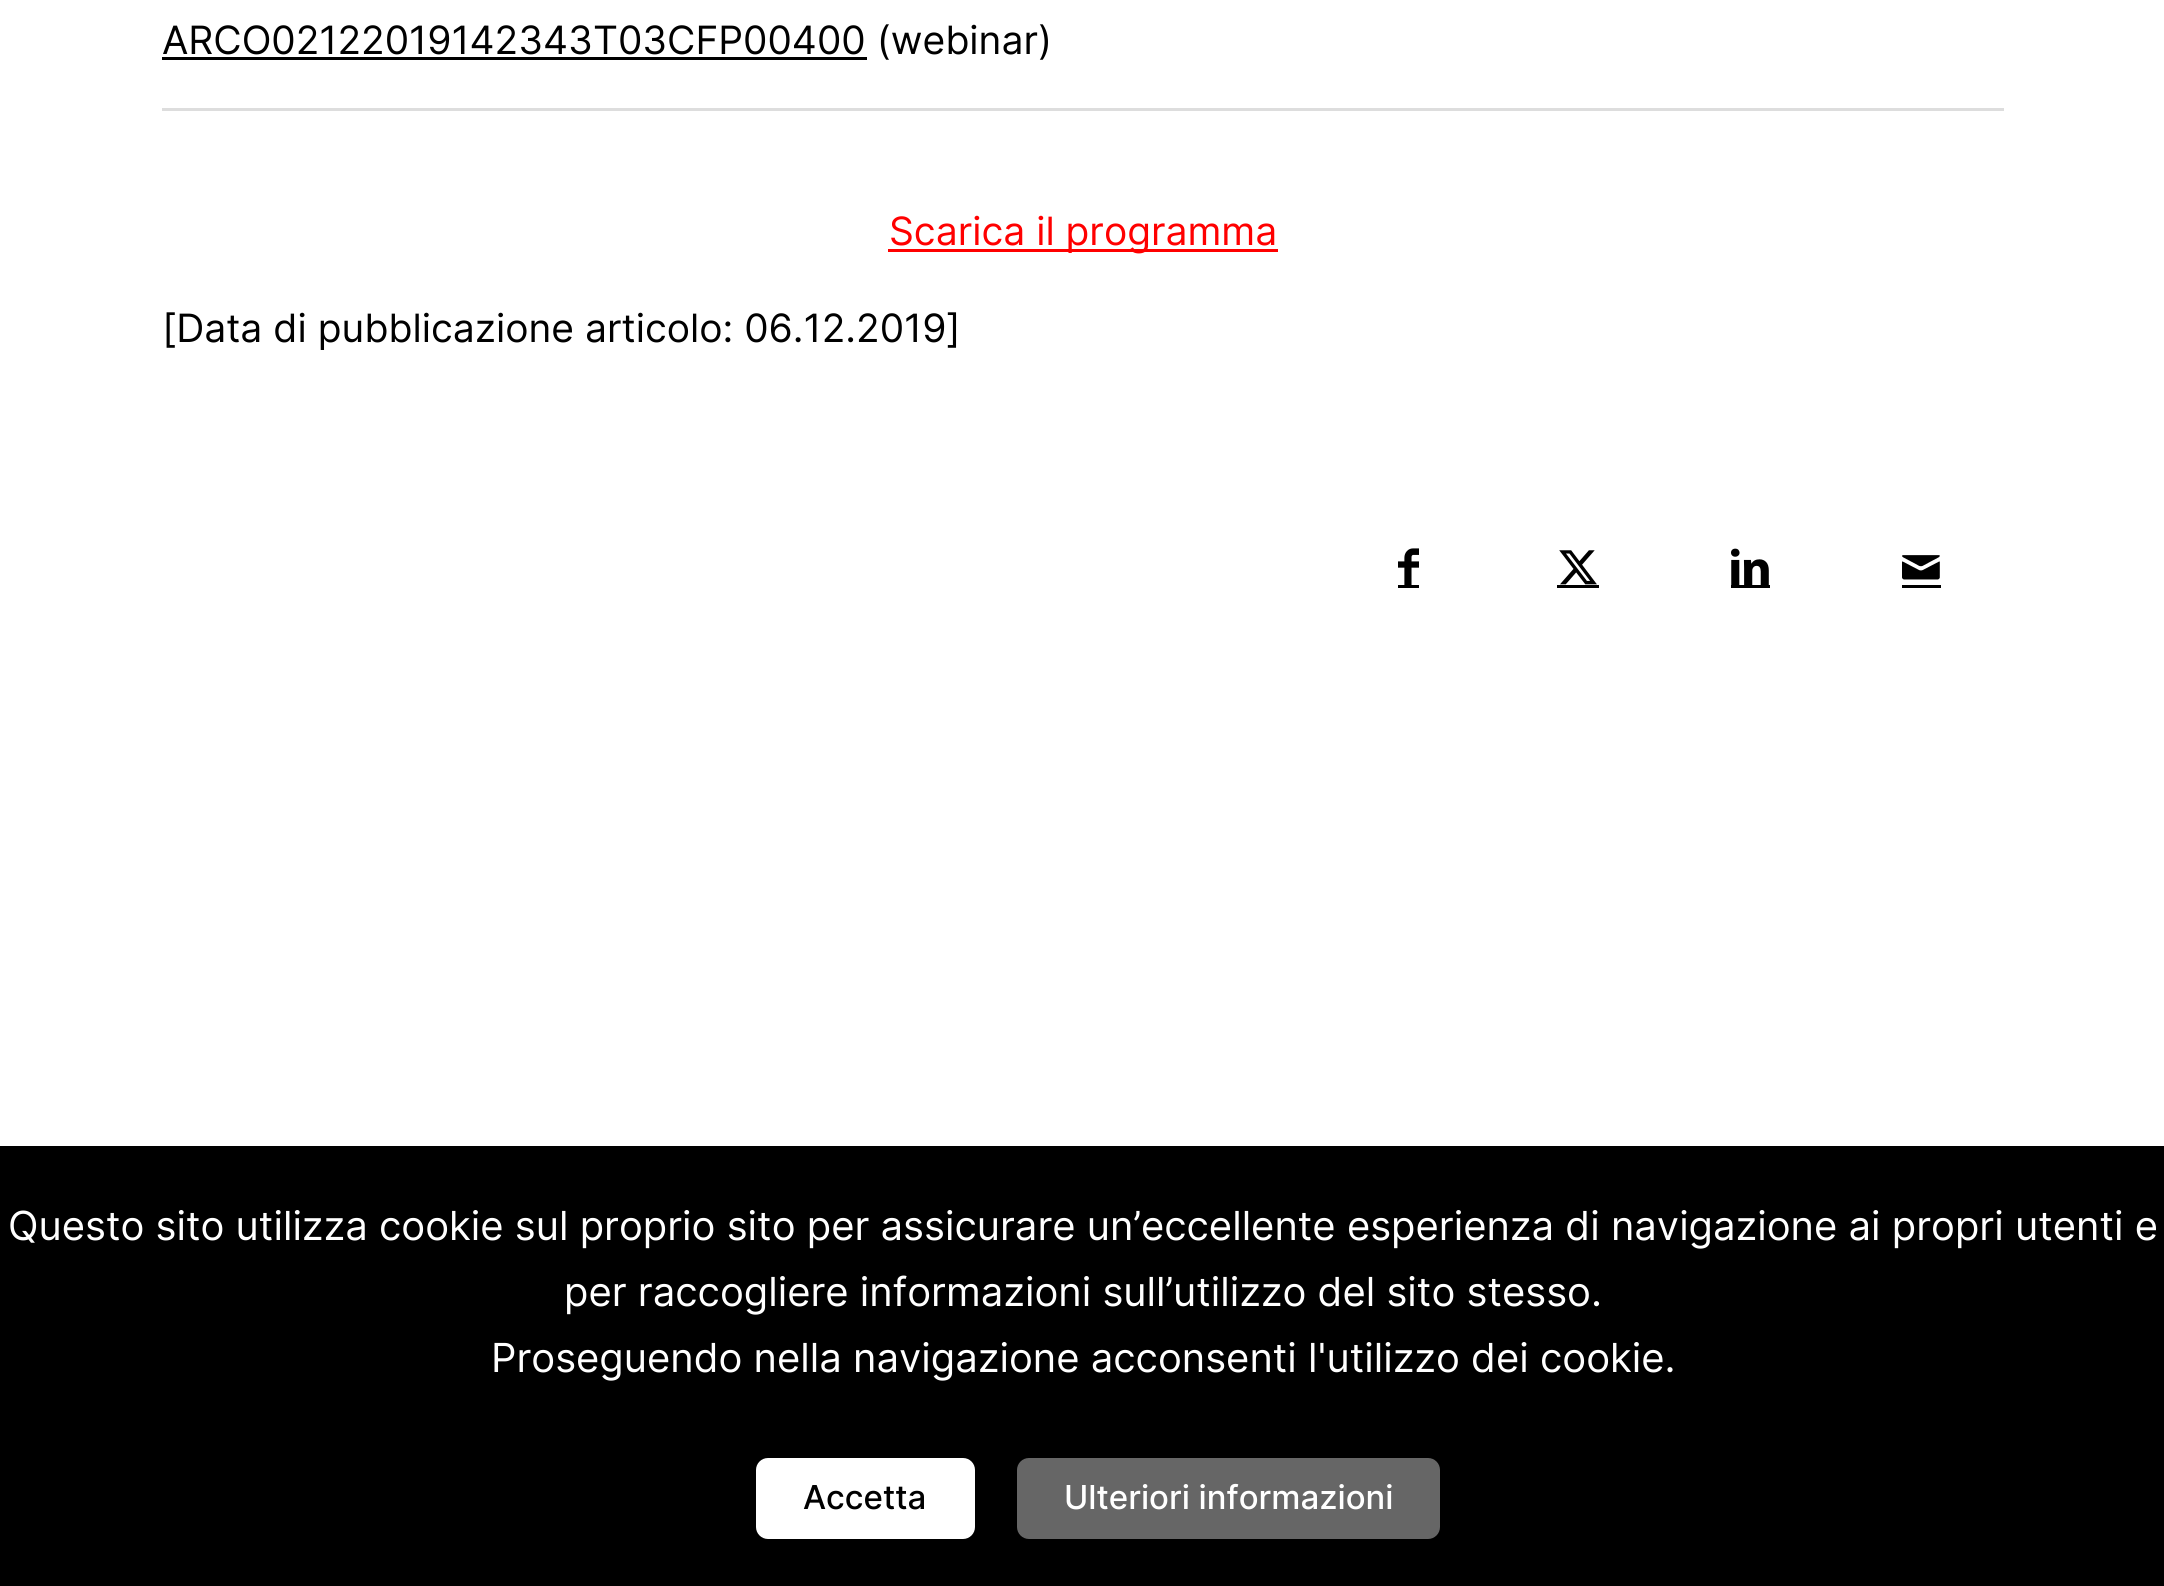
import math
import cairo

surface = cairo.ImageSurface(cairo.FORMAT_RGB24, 2164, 1586)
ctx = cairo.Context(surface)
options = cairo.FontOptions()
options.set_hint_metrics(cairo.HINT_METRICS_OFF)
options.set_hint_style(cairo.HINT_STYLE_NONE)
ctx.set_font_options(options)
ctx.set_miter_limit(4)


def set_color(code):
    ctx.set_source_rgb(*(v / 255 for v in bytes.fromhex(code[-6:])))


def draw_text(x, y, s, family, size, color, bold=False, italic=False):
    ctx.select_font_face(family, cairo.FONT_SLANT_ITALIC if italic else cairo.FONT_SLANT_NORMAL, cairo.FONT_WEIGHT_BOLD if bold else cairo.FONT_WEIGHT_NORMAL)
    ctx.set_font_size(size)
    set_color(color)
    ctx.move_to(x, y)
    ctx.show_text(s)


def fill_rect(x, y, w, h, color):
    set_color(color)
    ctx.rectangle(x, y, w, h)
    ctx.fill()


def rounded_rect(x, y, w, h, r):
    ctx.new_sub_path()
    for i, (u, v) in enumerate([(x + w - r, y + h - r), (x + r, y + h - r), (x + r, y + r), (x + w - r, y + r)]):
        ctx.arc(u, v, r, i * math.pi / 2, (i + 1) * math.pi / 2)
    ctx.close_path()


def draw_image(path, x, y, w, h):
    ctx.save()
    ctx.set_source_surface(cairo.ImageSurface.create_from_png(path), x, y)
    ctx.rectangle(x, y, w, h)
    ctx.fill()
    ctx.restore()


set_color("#ffffff")
ctx.paint()
fill_rect(162, 57, 705, 3, "#000000")
draw_text(162, 54, "ARCO02122019142343T03CFP00400 (webinar)", "Inter", 39, "#000000")
fill_rect(162, 108, 1842, 3, "#dddddd")
fill_rect(888, 249, 390, 3, "#ff0000")
draw_text(889, 245, "Scarica il programma", "Inter", 39, "#ff0000")
draw_text(162, 342, "[Data di pubblicazione articolo: 06.12.2019]", "Inter", 39, "#000000")
draw_image("assets/img1.png", 1398, 548, 21, 37)
fill_rect(1398, 585, 21, 3, "#000000")
draw_image("assets/img2.png", 1559, 550, 38, 35)
fill_rect(1557, 585, 42, 3, "#000000")
draw_image("assets/img3.png", 1731, 548, 38, 37)
fill_rect(1731, 585, 39, 3, "#000000")
draw_image("assets/img4.png", 1902, 555, 38, 25)
fill_rect(1902, 585, 39, 3, "#000000")
fill_rect(0, 1146, 2164, 440, "#000000")
draw_text(8, 1240, "Questo sito utilizza cookie sul proprio sito per assicurare un’eccellente esperienza di navigazione ai propri utenti e", "Inter", 40, "#ffffff")
draw_text(564, 1306, "per raccogliere informazioni sull’utilizzo del sito stesso.", "Inter", 40, "#ffffff")
draw_text(491, 1372, "Proseguendo nella navigazione acconsenti l'utilizzo dei cookie.", "Inter", 40, "#ffffff")
rounded_rect(756, 1458, 219, 81, 12)
ctx.fill()
draw_text(803, 1509, "Accetta", "Inter Medium", 33, "#000000")
set_color("#666666")
rounded_rect(1017, 1458, 423, 81, 12)
ctx.fill()
draw_text(1064, 1509, "Ulteriori informazioni", "Inter Medium", 33, "#ffffff")
surface.write_to_png("output.png")
